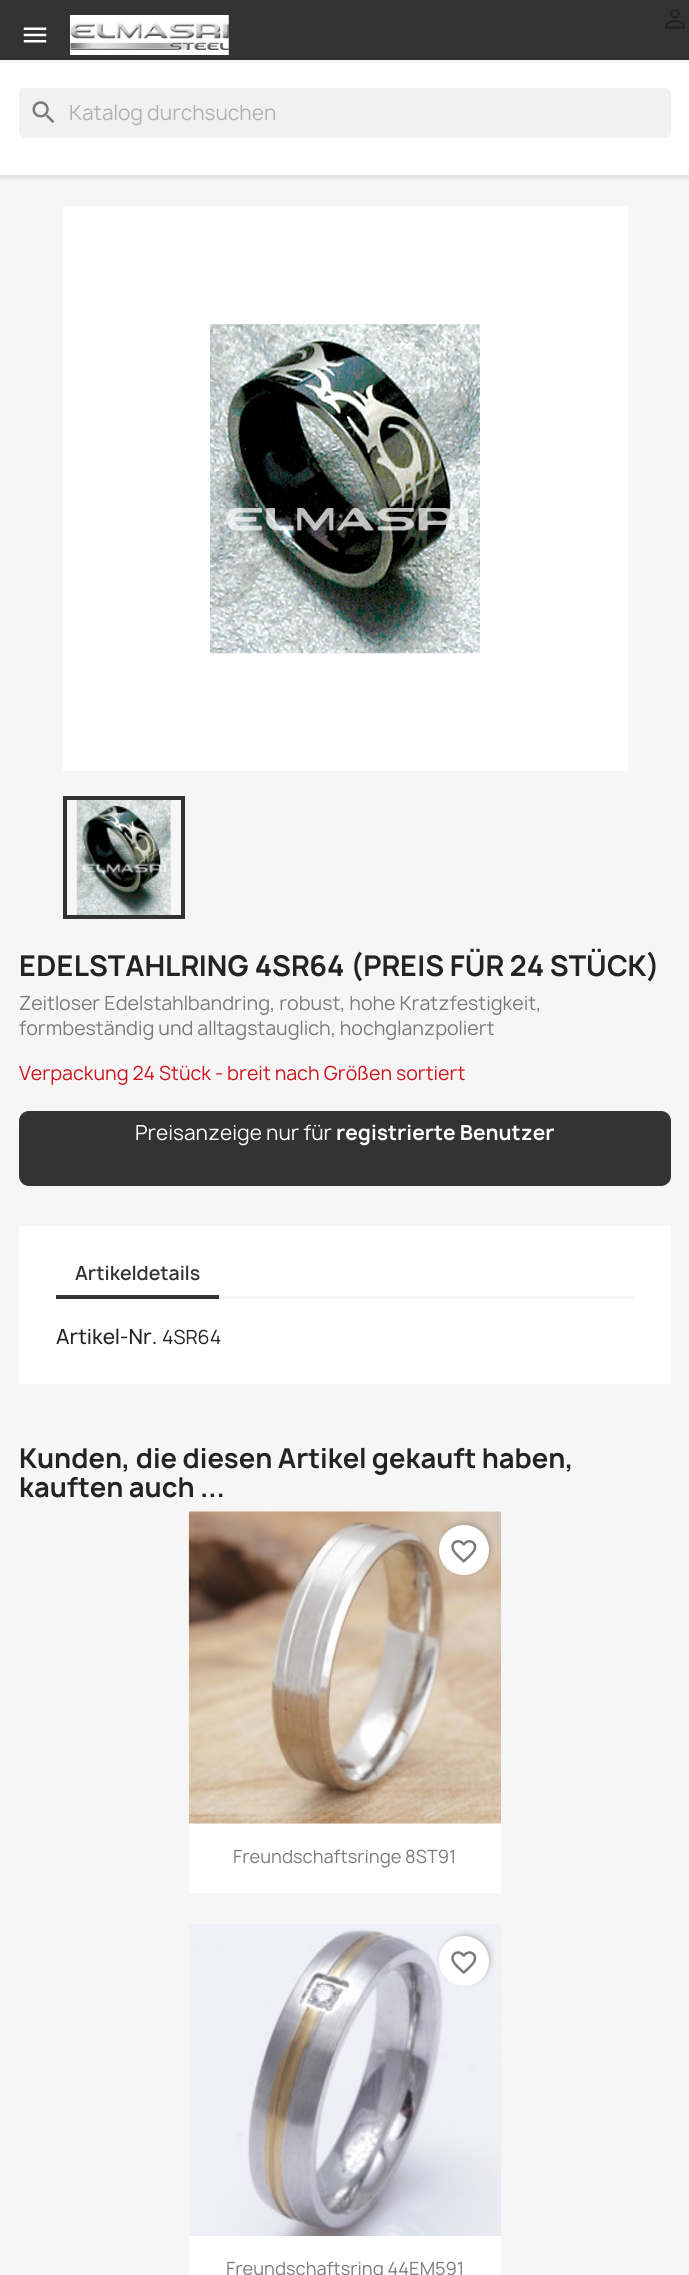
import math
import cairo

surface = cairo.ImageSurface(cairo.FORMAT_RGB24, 689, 2275)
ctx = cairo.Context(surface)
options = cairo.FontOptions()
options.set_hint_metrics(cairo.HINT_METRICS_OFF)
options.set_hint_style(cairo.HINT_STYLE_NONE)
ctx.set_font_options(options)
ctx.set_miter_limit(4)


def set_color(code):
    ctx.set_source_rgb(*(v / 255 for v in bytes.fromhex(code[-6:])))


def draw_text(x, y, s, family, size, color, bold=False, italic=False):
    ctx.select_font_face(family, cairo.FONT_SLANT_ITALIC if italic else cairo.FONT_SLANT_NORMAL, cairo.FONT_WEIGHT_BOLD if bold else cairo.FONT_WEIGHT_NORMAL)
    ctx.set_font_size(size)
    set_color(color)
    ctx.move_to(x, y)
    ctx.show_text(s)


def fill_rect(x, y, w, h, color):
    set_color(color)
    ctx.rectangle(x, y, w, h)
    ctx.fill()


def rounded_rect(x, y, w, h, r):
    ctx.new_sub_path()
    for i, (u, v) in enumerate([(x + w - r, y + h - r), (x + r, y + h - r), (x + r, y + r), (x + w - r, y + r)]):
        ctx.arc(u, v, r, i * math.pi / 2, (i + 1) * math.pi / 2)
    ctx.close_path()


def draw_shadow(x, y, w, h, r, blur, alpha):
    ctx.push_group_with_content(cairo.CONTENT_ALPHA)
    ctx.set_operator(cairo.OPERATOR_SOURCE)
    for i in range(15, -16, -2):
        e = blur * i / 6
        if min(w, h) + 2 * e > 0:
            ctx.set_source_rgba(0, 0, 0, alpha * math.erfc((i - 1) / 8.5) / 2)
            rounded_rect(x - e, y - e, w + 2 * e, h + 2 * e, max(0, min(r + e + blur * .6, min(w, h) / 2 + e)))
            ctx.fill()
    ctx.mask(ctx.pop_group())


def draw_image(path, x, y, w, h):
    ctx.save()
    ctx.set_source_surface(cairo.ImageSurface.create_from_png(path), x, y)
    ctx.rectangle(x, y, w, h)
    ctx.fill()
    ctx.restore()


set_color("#ffffff")
ctx.paint()
fill_rect(0, 175, 689, 2100, "#f6f6f6")
ctx.save()
ctx.rectangle(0, 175, 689, 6)
ctx.clip()
set_color("#000000")
draw_shadow(0, 3, 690, 175, 0, 3, 0.11)
ctx.restore()
fill_rect(0, 0, 689, 60, "#333333")
fill_rect(0, 60, 689, 3, "#f6f6f6")
draw_image("assets/img1.png", 23, 27, 24, 16)
draw_image("assets/img2.png", 70, 15, 159, 40)
draw_image("assets/img3.png", 665, 9, 20, 20)
set_color("#f1f1f1")
rounded_rect(19, 88, 652, 50, 6)
ctx.fill()
draw_image("assets/img4.png", 32, 101, 23, 22)
draw_text(69, 120, "Katalog durchsuchen", "Manrope", 20, "#b1b1b1")
fill_rect(63, 206, 565, 565, "#ffffff")
draw_image("assets/img5.png", 210, 324, 270, 330)
ctx.rectangle(65, 798, 118, 119)
set_color("#333333")
ctx.set_line_width(4)
ctx.stroke()
draw_image("assets/img6.png", 76, 800, 95, 115)
draw_text(19, 976, "EDELSTAHLRING 4SR64 (PREIS FÜR 24 STÜCK)", "Manrope", 27.5, "#232323", bold=True)
draw_text(19, 1010, "Zeitloser Edelstahlbandring, robust, hohe Kratzfestigkeit,", "Manrope", 18.75, "#7a7a7a")
draw_text(19, 1035, "formbeständig und alltagstauglich, hochglanzpoliert", "Manrope", 18.75, "#7a7a7a")
draw_text(19, 1080, "Verpackung 24 Stück - breit nach Größen sortiert", "Manrope", 18.75, "#d0121a")
set_color("#333333")
rounded_rect(19, 1111, 652, 75, 10)
ctx.fill()
draw_text(135, 1140, "Preisanzeige nur für", "Manrope", 20, "#ffffff")
draw_text(336, 1140, "registrierte Benutzer", "Manrope", 20, "#ffffff", bold=True)
fill_rect(19, 1226, 652, 158, "#ffffff")
fill_rect(219, 1296, 415, 3, "#f6f6f6")
fill_rect(56, 1295, 163, 4, "#333333")
draw_text(75, 1280, "Artikeldetails", "Manrope SemiBold", 18.75, "#333333")
draw_text(56, 1344, "Artikel-Nr.", "Manrope Medium", 20, "#232323")
draw_text(162, 1344, "4SR64", "Manrope", 18.75, "#232323")
draw_text(19, 1468, "Kunden, die diesen Artikel gekauft haben,", "Manrope", 26.25, "#232323", bold=True)
draw_text(19, 1497, "kauften auch ...", "Manrope", 26.25, "#232323", bold=True)
fill_rect(189, 1511, 312, 382, "#ffffff")
draw_image("assets/img7.png", 188, 1511, 314, 313)
set_color("#000000")
draw_shadow(441, 1523, 50, 50, 25, 2.5, 0.2)
set_color("#ffffff")
ctx.arc(464, 1550, 25, 0, 2 * math.pi)
ctx.fill()
draw_image("assets/img8.png", 451, 1540, 26, 23)
draw_text(233, 1863, "Freundschaftsringe 8ST91", "Manrope", 17.5, "#7a7a7a")
draw_image("assets/img9.png", 189, 1924, 312, 312)
set_color("#000000")
draw_shadow(441, 1934, 50, 50, 25, 2.5, 0.2)
set_color("#ffffff")
ctx.arc(464, 1961, 25, 0, 2 * math.pi)
ctx.fill()
draw_image("assets/img10.png", 451, 1951, 26, 23)
fill_rect(189, 2236, 312, 39, "#ffffff")
draw_text(226, 2275, "Freundschaftsring 44EM591", "Manrope", 17.5, "#7a7a7a")
surface.write_to_png("output.png")
